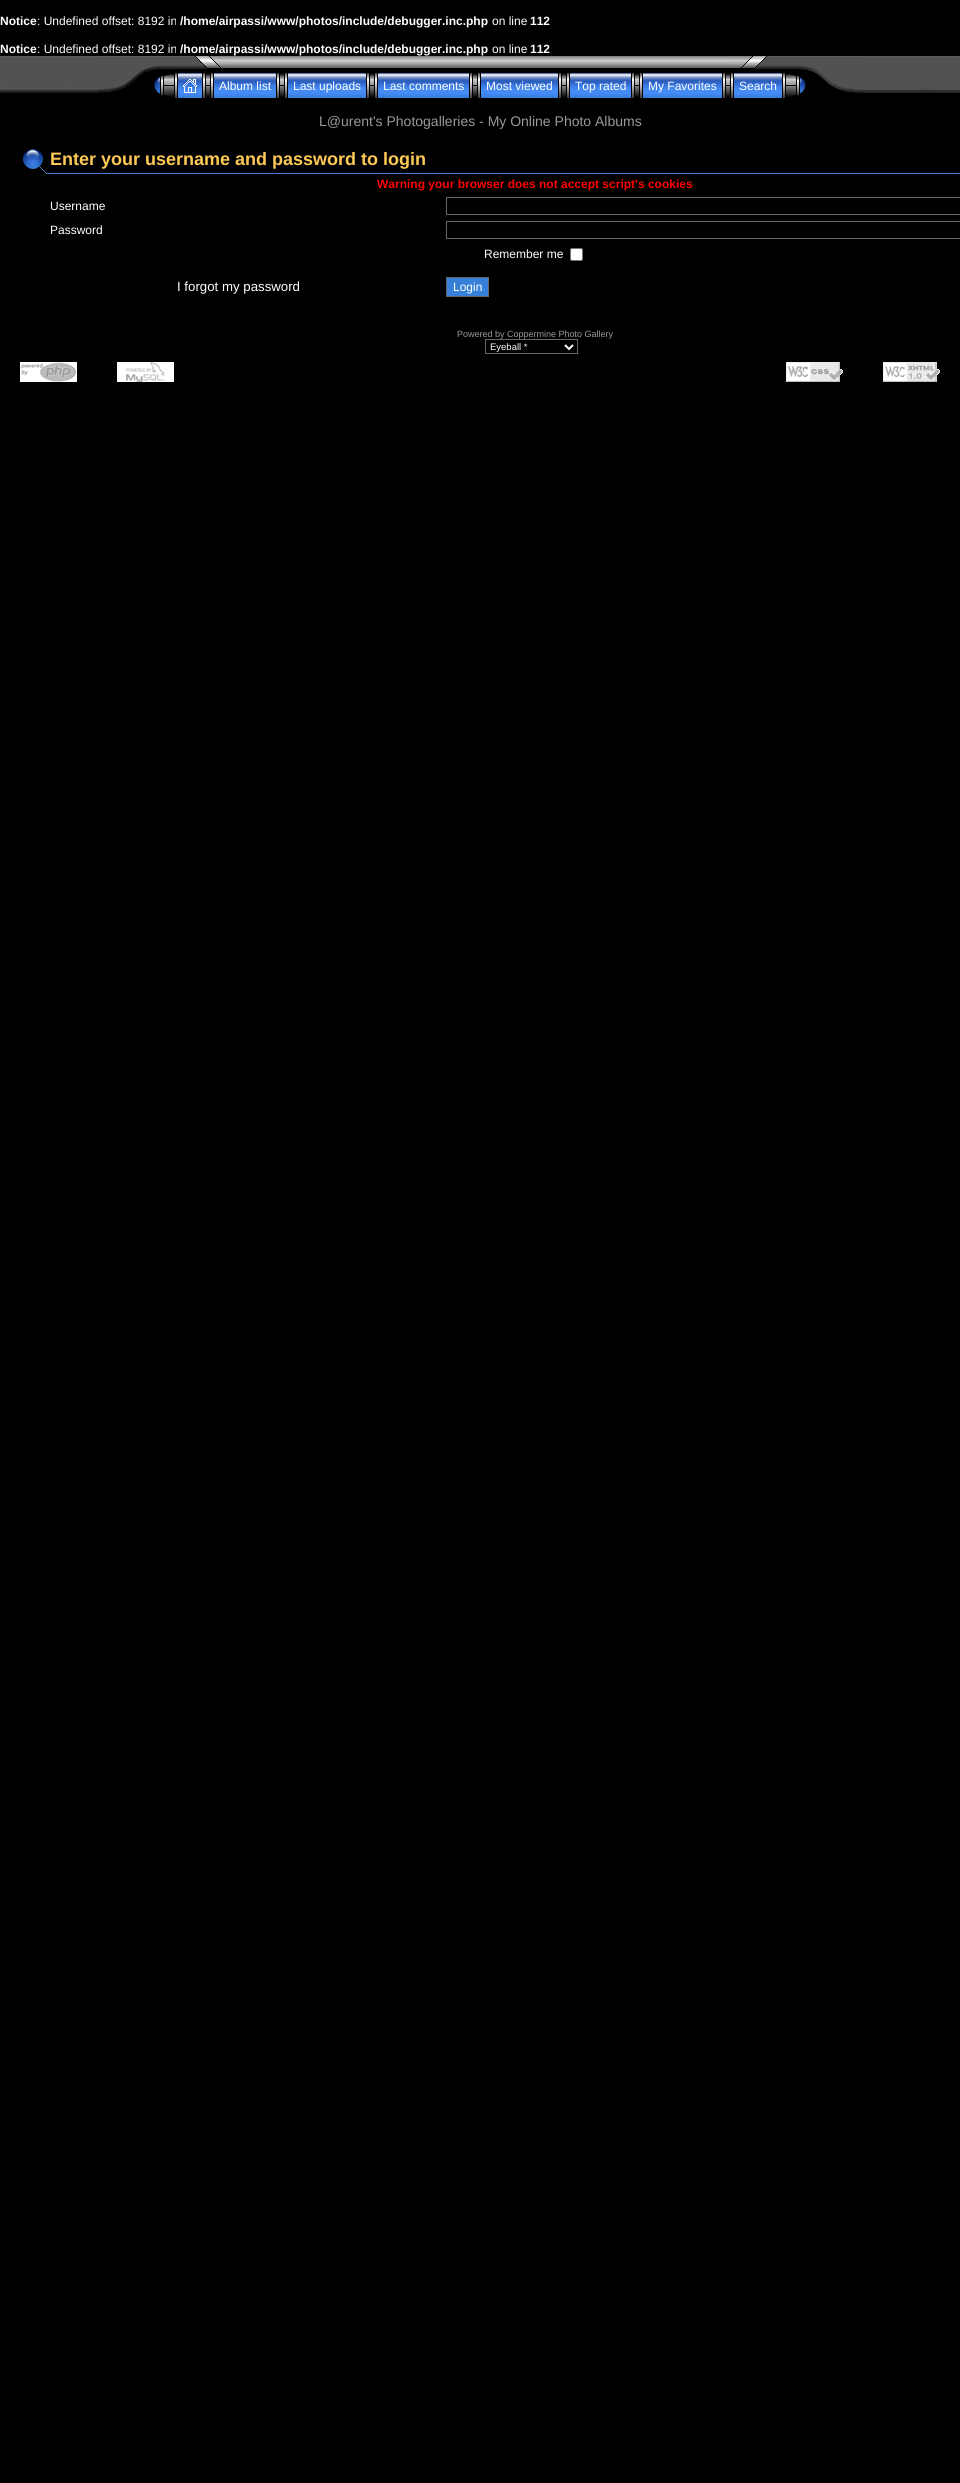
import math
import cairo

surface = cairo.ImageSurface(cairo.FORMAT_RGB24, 960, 2483)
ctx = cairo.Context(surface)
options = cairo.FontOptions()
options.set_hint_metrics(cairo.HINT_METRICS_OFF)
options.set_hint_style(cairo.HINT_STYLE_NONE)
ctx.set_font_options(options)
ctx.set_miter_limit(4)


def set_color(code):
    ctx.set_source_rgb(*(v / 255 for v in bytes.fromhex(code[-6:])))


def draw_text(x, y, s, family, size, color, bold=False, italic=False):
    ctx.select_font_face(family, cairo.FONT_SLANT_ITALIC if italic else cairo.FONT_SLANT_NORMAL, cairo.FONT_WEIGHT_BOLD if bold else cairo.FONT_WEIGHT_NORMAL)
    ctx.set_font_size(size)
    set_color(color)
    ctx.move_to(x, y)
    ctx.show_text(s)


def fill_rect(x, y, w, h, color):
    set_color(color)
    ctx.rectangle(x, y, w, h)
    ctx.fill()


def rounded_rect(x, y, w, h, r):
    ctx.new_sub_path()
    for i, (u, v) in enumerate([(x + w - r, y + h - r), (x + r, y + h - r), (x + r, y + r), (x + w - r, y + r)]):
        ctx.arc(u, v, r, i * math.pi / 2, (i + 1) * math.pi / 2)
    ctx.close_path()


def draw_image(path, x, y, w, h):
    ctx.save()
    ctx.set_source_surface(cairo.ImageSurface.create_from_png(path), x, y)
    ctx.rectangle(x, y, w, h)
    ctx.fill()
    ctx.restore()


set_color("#000000")
ctx.paint()
draw_text(0, 25, "Notice", "Liberation Sans", 12, "#ffffff", bold=True)
draw_text(37, 25, ": Undefined offset: 8192 in", "Liberation Sans", 12, "#ffffff")
draw_text(180, 25, "/home/airpassi/www/photos/include/debugger.inc.php", "Liberation Sans", 12, "#ffffff", bold=True)
draw_text(492, 25, "on line", "Liberation Sans", 12, "#ffffff")
draw_text(530, 25, "112", "Liberation Sans", 12, "#ffffff", bold=True)
draw_text(0, 53, "Notice", "Liberation Sans", 12, "#ffffff", bold=True)
draw_text(37, 53, ": Undefined offset: 8192 in", "Liberation Sans", 12, "#ffffff")
draw_text(180, 53, "/home/airpassi/www/photos/include/debugger.inc.php", "Liberation Sans", 12, "#ffffff", bold=True)
draw_text(492, 53, "on line", "Liberation Sans", 12, "#ffffff")
draw_text(530, 53, "112", "Liberation Sans", 12, "#ffffff", bold=True)
draw_image("assets/img1.png", 0, 56, 97, 37)
draw_image("assets/img2.png", 97, 56, 135, 17)
draw_image("assets/img3.png", 232, 56, 496, 12)
draw_image("assets/img4.png", 728, 56, 135, 17)
draw_image("assets/img5.png", 97, 73, 47, 20)
draw_image("assets/img6.png", 154, 73, 23, 25)
draw_image("assets/img7.png", 178, 73, 24, 25)
draw_image("assets/img8.png", 183, 79, 14, 14)
draw_image("assets/img9.png", 203, 73, 10, 25)
draw_image("assets/img10.png", 214, 73, 62, 25)
draw_text(219, 90, "Album list", "Liberation Sans", 12, "#ffffff")
draw_image("assets/img9.png", 277, 73, 10, 25)
draw_image("assets/img11.png", 288, 73, 78, 25)
draw_text(293, 90, "Last uploads", "Liberation Sans", 12, "#ffffff")
draw_image("assets/img9.png", 367, 73, 10, 25)
draw_image("assets/img12.png", 378, 73, 91, 25)
draw_text(383, 90, "Last comments", "Liberation Sans", 12, "#ffffff")
draw_image("assets/img9.png", 470, 73, 10, 25)
draw_image("assets/img13.png", 481, 73, 77, 25)
draw_text(486, 90, "Most viewed", "Liberation Sans", 12, "#ffffff")
draw_image("assets/img9.png", 559, 73, 10, 25)
draw_image("assets/img14.png", 570, 73, 61, 25)
draw_text(575, 90, "Top rated", "Liberation Sans", 12, "#ffffff")
draw_image("assets/img9.png", 632, 73, 10, 25)
draw_image("assets/img15.png", 643, 73, 79, 25)
draw_text(648, 90, "My Favorites", "Liberation Sans", 12, "#ffffff")
draw_image("assets/img9.png", 723, 73, 10, 25)
draw_image("assets/img16.png", 734, 73, 48, 25)
draw_text(739, 90, "Search", "Liberation Sans", 12, "#ffffff")
draw_image("assets/img17.png", 782, 73, 26, 25)
draw_image("assets/img18.png", 816, 73, 47, 20)
draw_image("assets/img19.png", 863, 56, 97, 37)
draw_text(319, 126, "L@urent's Photogalleries - My Online Photo Albums", "Liberation Sans", 14, "#999999")
fill_rect(46, 173, 914, 1, "#447ac9")
draw_image("assets/img20.png", 20, 149, 26, 25)
draw_text(50, 165, "Enter your username and password to login", "Liberation Sans", 18, "#ffc956", bold=True)
draw_text(377, 188, "Warning your browser does not accept script's cookies", "Liberation Sans", 12, "#ff0000", bold=True)
draw_text(50, 210, "Username", "Liberation Sans", 12, "#ffffff")
ctx.rectangle(446.5, 197.5, 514, 17)
set_color("#666666")
ctx.set_line_width(1)
ctx.stroke()
draw_text(50, 234, "Password", "Liberation Sans", 12, "#ffffff")
ctx.rectangle(446.5, 221.5, 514, 17)
set_color("#666666")
ctx.stroke()
draw_text(484, 258, "Remember me", "Liberation Sans", 12, "#ffffff")
rounded_rect(570.5, 248.5, 12, 12, 1.5)
ctx.fill_preserve()
set_color("#767676")
ctx.stroke()
draw_text(177, 291, "I forgot my password", "Liberation Sans", 13.25, "#ffffff")
set_color("#3680d9")
ctx.rectangle(446.5, 277.5, 42, 19)
ctx.fill_preserve()
set_color("#666666")
ctx.stroke()
draw_text(453, 291, "Login", "Liberation Sans", 12, "#ffffff")
draw_text(457, 337, "Powered by Coppermine Photo Gallery", "Liberation Sans", 9, "#999999")
ctx.rectangle(485.5, 339.5, 92, 14)
set_color("#666666")
ctx.stroke()
ctx.new_path()
ctx.move_to(565, 345)
ctx.line_to(569, 349)
ctx.line_to(573, 345)
set_color("#ffffff")
ctx.set_line_width(2)
ctx.stroke()
draw_text(490, 350, "Eyeball *", "Liberation Sans", 9.5, "#ffffff")
draw_image("assets/img21.png", 20, 362, 57, 20)
draw_image("assets/img22.png", 117, 362, 57, 20)
draw_image("assets/img23.png", 786, 362, 57, 20)
draw_image("assets/img24.png", 883, 362, 57, 20)
surface.write_to_png("output.png")
